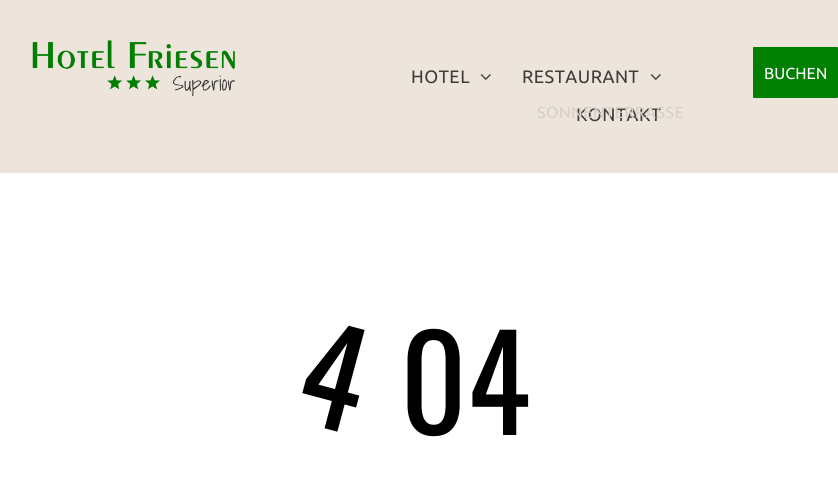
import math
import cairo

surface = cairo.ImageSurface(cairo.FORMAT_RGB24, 838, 494)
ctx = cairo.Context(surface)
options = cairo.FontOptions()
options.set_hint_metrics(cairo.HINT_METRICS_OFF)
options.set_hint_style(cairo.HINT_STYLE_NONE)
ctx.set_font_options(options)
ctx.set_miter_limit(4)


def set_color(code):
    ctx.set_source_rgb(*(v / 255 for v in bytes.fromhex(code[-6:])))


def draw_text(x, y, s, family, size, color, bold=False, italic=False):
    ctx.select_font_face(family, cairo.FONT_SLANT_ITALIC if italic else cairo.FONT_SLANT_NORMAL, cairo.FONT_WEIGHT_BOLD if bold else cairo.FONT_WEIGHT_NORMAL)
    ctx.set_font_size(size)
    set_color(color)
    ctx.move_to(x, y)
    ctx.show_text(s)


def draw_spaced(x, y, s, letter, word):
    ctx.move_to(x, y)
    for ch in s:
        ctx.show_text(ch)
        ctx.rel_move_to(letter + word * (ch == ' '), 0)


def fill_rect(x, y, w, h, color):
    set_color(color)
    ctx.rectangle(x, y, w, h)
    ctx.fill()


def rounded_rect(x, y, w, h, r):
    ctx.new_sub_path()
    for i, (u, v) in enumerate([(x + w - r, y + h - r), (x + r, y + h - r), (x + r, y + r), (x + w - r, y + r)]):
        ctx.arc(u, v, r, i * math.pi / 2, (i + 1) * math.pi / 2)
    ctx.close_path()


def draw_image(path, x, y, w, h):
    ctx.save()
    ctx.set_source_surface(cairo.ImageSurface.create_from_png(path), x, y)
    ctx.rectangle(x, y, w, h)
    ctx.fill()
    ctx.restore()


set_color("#ffffff")
ctx.paint()
fill_rect(0, 0, 838, 173, "#ede4db")
draw_image("assets/img1.png", 32, 40, 203, 57)
ctx.select_font_face("Ubuntu")
ctx.set_font_size(18)
set_color("#3c3c3c")
draw_spaced(411, 83, "HOTEL", 0.5, 0)
draw_image("assets/img2.png", 480, 74, 11, 6)
draw_spaced(522, 83, "RESTAURANT", 0.5, 0)
draw_image("assets/img2.png", 650, 74, 11, 6)
draw_spaced(576, 121, "KONTAKT", 0.5, 0)
ctx.set_font_size(16)
set_color("#d7cfc7")
draw_spaced(537, 118, "SONNENTERRASSE", 0.5, 0)
set_color("#007f00")
rounded_rect(753, 47, 85, 51, 1)
ctx.fill()
draw_text(764, 79, "BUCHEN", "Ubuntu", 16, "#ffffff")
ctx.save()
ctx.translate(290, 419)
ctx.rotate(15 * math.pi / 180)
draw_text(0, 0, "4", "Oswald", 130, "#000000")
ctx.restore()
draw_text(400, 435, "04", "Oswald", 130, "#000000")
surface.write_to_png("output.png")
